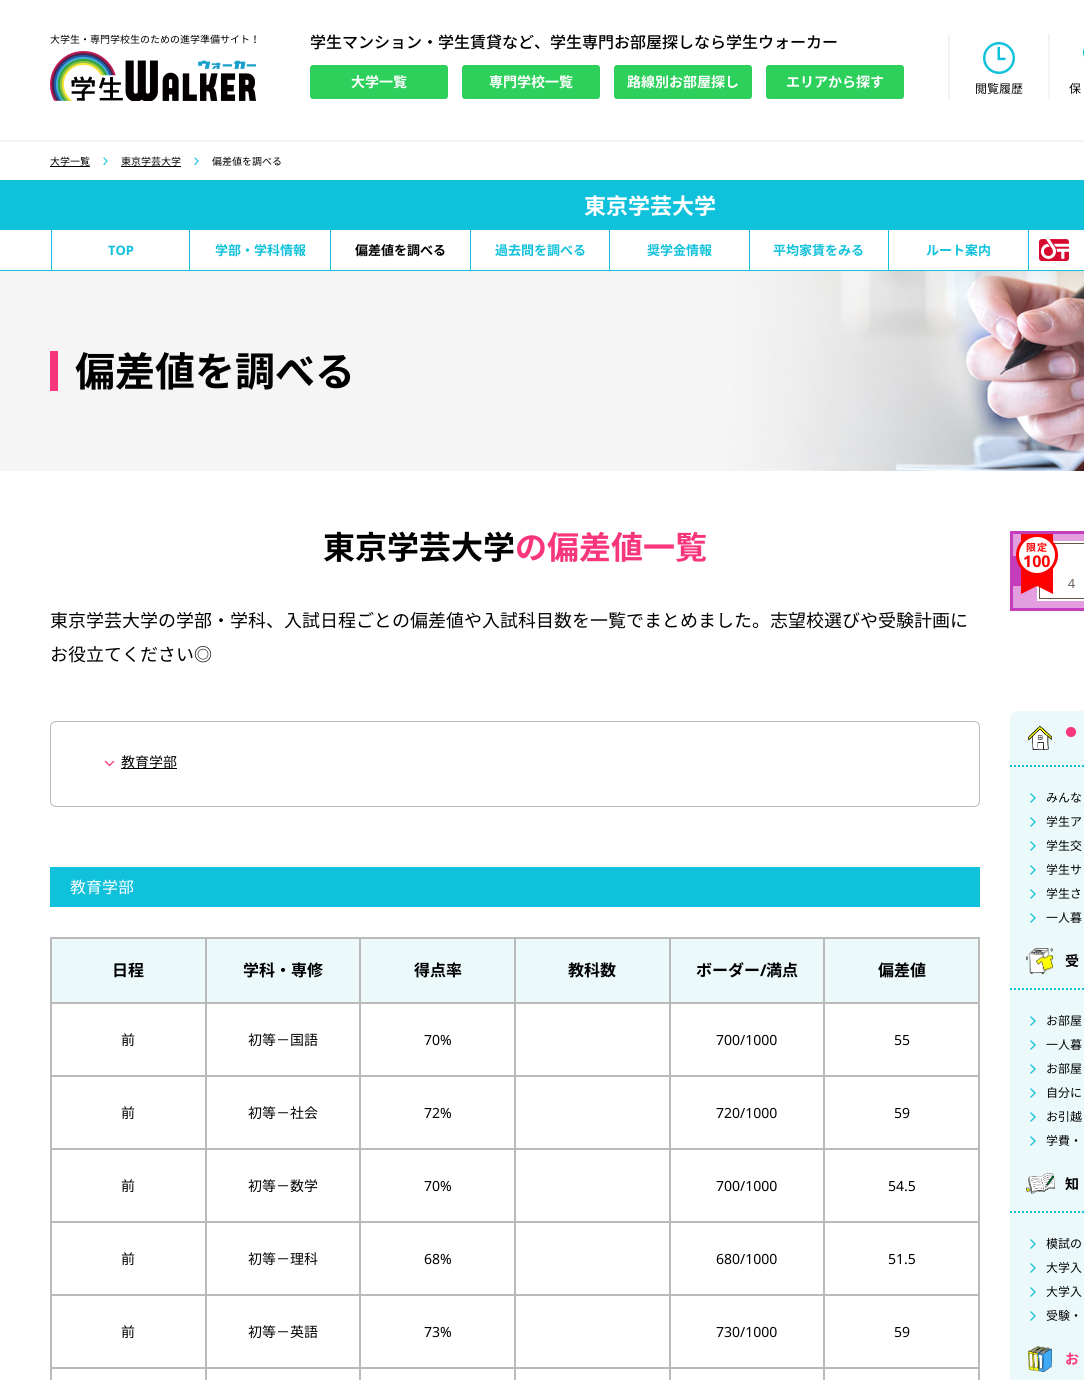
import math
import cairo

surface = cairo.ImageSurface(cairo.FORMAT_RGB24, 1084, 1380)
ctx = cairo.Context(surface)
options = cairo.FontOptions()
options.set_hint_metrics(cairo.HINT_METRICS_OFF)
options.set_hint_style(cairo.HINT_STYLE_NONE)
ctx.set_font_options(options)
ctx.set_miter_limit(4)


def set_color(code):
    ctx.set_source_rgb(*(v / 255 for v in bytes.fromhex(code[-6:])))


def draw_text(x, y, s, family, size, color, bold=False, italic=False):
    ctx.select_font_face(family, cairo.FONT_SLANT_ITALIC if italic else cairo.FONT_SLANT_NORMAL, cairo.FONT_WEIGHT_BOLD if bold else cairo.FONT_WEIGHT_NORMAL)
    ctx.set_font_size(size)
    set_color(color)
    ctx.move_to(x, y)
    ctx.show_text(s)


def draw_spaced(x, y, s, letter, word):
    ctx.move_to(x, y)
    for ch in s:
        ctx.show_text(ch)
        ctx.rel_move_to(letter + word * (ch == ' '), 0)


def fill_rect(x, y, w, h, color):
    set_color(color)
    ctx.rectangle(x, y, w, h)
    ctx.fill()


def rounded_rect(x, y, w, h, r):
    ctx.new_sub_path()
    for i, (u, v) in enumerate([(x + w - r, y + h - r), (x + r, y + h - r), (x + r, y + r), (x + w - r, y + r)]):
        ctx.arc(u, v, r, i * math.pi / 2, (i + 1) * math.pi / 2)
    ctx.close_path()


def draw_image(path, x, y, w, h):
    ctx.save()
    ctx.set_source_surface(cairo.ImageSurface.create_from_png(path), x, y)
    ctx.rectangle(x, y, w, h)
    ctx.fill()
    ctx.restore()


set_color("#ffffff")
ctx.paint()
draw_text(50, 43, "大学生・専門学校生のための進学準備サイト！", "Noto Sans CJK JP", 10, "#000000")
draw_image("assets/img1.png", 50, 51, 206, 50)
draw_text(310, 48, "学生マンション・学生賃貸など、学生専門お部屋探しなら学生ウォーカー", "Noto Sans CJK JP Medium", 16, "#000000")
set_color("#2ed05c")
rounded_rect(310, 65, 138, 34, 3)
ctx.fill()
draw_text(351, 87, "大学一覧", "Noto Sans CJK JP", 14, "#ffffff", bold=True)
set_color("#2ed05c")
rounded_rect(462, 65, 138, 34, 3)
ctx.fill()
draw_text(489, 87, "専門学校一覧", "Noto Sans CJK JP", 14, "#ffffff", bold=True)
set_color("#2ed05c")
rounded_rect(614, 65, 138, 34, 3)
ctx.fill()
draw_text(627, 87, "路線別お部屋探し", "Noto Sans CJK JP", 14, "#ffffff", bold=True)
set_color("#2ed05c")
rounded_rect(766, 65, 138, 34, 3)
ctx.fill()
draw_text(786, 87, "エリアから探す", "Noto Sans CJK JP", 14, "#ffffff", bold=True)
fill_rect(948, 34, 2, 65, "#f3f3f3")
draw_image("assets/img2.png", 983, 42, 32, 32)
draw_text(975, 93, "閲覧履歴", "Noto Sans CJK JP", 12, "#000000")
fill_rect(1048, 34, 2, 65, "#f3f3f3")
ctx.new_path()
ctx.move_to(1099.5, 72)
ctx.curve_to(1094.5, 67.5, 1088, 62.5, 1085, 56.5)
ctx.curve_to(1080.5, 47, 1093, 40, 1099.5, 47.5)
ctx.curve_to(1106, 40, 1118.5, 47, 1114, 56.5)
ctx.curve_to(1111, 62.5, 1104.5, 67.5, 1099.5, 72)
ctx.close_path()
set_color("#0fc1da")
ctx.set_line_width(2.3)
ctx.set_line_cap(cairo.LINE_CAP_ROUND)
ctx.set_line_join(cairo.LINE_JOIN_ROUND)
ctx.stroke()
draw_text(1069, 93, "保", "Noto Sans CJK JP", 12, "#000000")
fill_rect(0, 140, 1084, 2, "#f3f3f3")
ctx.new_path()
ctx.move_to(104, 158)
ctx.line_to(107, 161)
ctx.line_to(104, 164.5)
set_color("#0fc1da")
ctx.set_line_width(1.1)
ctx.set_line_cap(cairo.LINE_CAP_SQUARE)
ctx.set_line_join(cairo.LINE_JOIN_MITER)
ctx.stroke()
draw_text(50, 165, "大学一覧", "Noto Sans CJK JP", 10, "#000000")
fill_rect(50, 166, 40, 1, "#000000")
ctx.new_path()
ctx.move_to(195, 158)
ctx.line_to(198, 161)
ctx.line_to(195, 164.5)
set_color("#0fc1da")
ctx.stroke()
draw_text(121, 165, "東京学芸大学", "Noto Sans CJK JP", 10, "#000000")
fill_rect(121, 166, 60, 1, "#000000")
draw_text(212, 165, "偏差値を調べる", "Noto Sans CJK JP", 10, "#000000")
fill_rect(0, 180, 1084, 50, "#0fc1da")
draw_text(584, 214, "東京学芸大学", "Noto Sans CJK JP", 22, "#ffffff", bold=True)
fill_rect(0, 270, 1084, 1, "#0fc1da")
fill_rect(189, 230, 1, 40, "#0fc1da")
fill_rect(51, 230, 1, 40, "#0fc1da")
draw_text(108, 255, "TOP", "Noto Sans", 13, "#0fc1da", bold=True)
fill_rect(330, 230, 1, 40, "#0fc1da")
draw_text(215, 255, "学部・学科情報", "Noto Sans CJK JP", 13, "#0fc1da", bold=True)
fill_rect(470, 230, 1, 40, "#0fc1da")
draw_text(355, 255, "偏差値を調べる", "Noto Sans CJK JP", 13, "#000000", bold=True)
fill_rect(609, 230, 1, 40, "#0fc1da")
draw_text(495, 255, "過去問を調べる", "Noto Sans CJK JP", 13, "#0fc1da", bold=True)
fill_rect(749, 230, 1, 40, "#0fc1da")
draw_text(647, 255, "奨学金情報", "Noto Sans CJK JP", 13, "#0fc1da", bold=True)
fill_rect(888, 230, 1, 40, "#0fc1da")
draw_text(773, 255, "平均家賃をみる", "Noto Sans CJK JP", 13, "#0fc1da", bold=True)
fill_rect(1028, 230, 1, 40, "#0fc1da")
draw_text(926, 255, "ルート案内", "Noto Sans CJK JP", 13, "#0fc1da", bold=True)
draw_image("assets/img3.png", 1039, 239, 30, 22)
draw_image("assets/img4.png", 0, 271, 1084, 200)
fill_rect(50, 351, 8, 40, "#f8367b")
draw_text(75, 386, "偏差値を調べる", "Noto Sans CJK JP", 40, "#000000", bold=True)
draw_text(323, 559, "東京学芸大学", "Noto Sans CJK JP", 32, "#000000", bold=True)
draw_text(515, 559, "の偏差値一覧", "Noto Sans CJK JP", 32, "#f8367b", bold=True)
draw_text(50, 627, "東京学芸大学の学部・学科、入試日程ごとの偏差値や入試科目数を一覧でまとめました。志望校選びや受験計画に", "Noto Sans CJK JP", 18, "#000000")
draw_text(50, 661, "お役立てください◎", "Noto Sans CJK JP", 18, "#000000")
rounded_rect(50.5, 721.5, 929, 85, 5.5)
set_color("#bbbaba")
ctx.set_line_width(1)
ctx.set_line_cap(cairo.LINE_CAP_BUTT)
ctx.stroke()
ctx.save()
ctx.new_path()
ctx.move_to(114, 760.5)
ctx.line_to(114, 766.5)
ctx.line_to(104, 766.5)
ctx.line_to(104, 760.5)
ctx.close_path()
ctx.clip()
ctx.new_path()
ctx.move_to(113.5, 761.5)
ctx.line_to(109.5, 765.5)
ctx.line_to(105.5, 761.5)
set_color("#f8367b")
ctx.set_line_width(1.3)
ctx.set_line_cap(cairo.LINE_CAP_SQUARE)
ctx.stroke()
ctx.restore()
fill_rect(121, 768, 56, 1, "#000000")
draw_text(121, 767, "教育学部", "Noto Sans CJK JP", 14, "#000000")
fill_rect(50, 867, 930, 40, "#0fc1da")
draw_text(70, 893, "教育学部", "Noto Sans CJK JP", 16, "#ffffff")
fill_rect(50, 937, 2, 443, "#bbbaba")
fill_rect(52, 939, 153, 63, "#ecf9fa")
fill_rect(50, 937, 930, 2, "#bbbaba")
fill_rect(50, 1002, 930, 2, "#bbbaba")
fill_rect(50, 1075, 930, 2, "#bbbaba")
fill_rect(50, 1148, 930, 2, "#bbbaba")
fill_rect(50, 1221, 930, 2, "#bbbaba")
fill_rect(50, 1294, 930, 2, "#bbbaba")
fill_rect(50, 1367, 930, 2, "#bbbaba")
fill_rect(205, 1367, 2, 13, "#bbbaba")
fill_rect(205, 1294, 2, 75, "#bbbaba")
fill_rect(205, 1221, 2, 75, "#bbbaba")
fill_rect(205, 1148, 2, 75, "#bbbaba")
fill_rect(205, 1075, 2, 75, "#bbbaba")
fill_rect(205, 1002, 2, 75, "#bbbaba")
fill_rect(205, 937, 2, 67, "#bbbaba")
draw_text(112, 976, "日程", "Noto Sans CJK JP", 16, "#000000", bold=True)
fill_rect(207, 939, 152, 63, "#ecf9fa")
fill_rect(359, 1367, 2, 13, "#bbbaba")
fill_rect(359, 1294, 2, 75, "#bbbaba")
fill_rect(359, 1221, 2, 75, "#bbbaba")
fill_rect(359, 1148, 2, 75, "#bbbaba")
fill_rect(359, 1075, 2, 75, "#bbbaba")
fill_rect(359, 1002, 2, 75, "#bbbaba")
fill_rect(359, 937, 2, 67, "#bbbaba")
draw_text(243, 976, "学科・専修", "Noto Sans CJK JP", 16, "#000000", bold=True)
fill_rect(361, 939, 153, 63, "#ecf9fa")
fill_rect(514, 1367, 2, 13, "#bbbaba")
fill_rect(514, 1294, 2, 75, "#bbbaba")
fill_rect(514, 1221, 2, 75, "#bbbaba")
fill_rect(514, 1148, 2, 75, "#bbbaba")
fill_rect(514, 1075, 2, 75, "#bbbaba")
fill_rect(514, 1002, 2, 75, "#bbbaba")
fill_rect(514, 937, 2, 67, "#bbbaba")
draw_text(414, 976, "得点率", "Noto Sans CJK JP", 16, "#000000", bold=True)
fill_rect(516, 939, 153, 63, "#ecf9fa")
fill_rect(669, 1367, 2, 13, "#bbbaba")
fill_rect(669, 1294, 2, 75, "#bbbaba")
fill_rect(669, 1221, 2, 75, "#bbbaba")
fill_rect(669, 1148, 2, 75, "#bbbaba")
fill_rect(669, 1075, 2, 75, "#bbbaba")
fill_rect(669, 1002, 2, 75, "#bbbaba")
fill_rect(669, 937, 2, 67, "#bbbaba")
draw_text(568, 976, "教科数", "Noto Sans CJK JP", 16, "#000000", bold=True)
fill_rect(671, 939, 152, 63, "#ecf9fa")
fill_rect(823, 1367, 2, 13, "#bbbaba")
fill_rect(823, 1294, 2, 75, "#bbbaba")
fill_rect(823, 1221, 2, 75, "#bbbaba")
fill_rect(823, 1148, 2, 75, "#bbbaba")
fill_rect(823, 1075, 2, 75, "#bbbaba")
fill_rect(823, 1002, 2, 75, "#bbbaba")
fill_rect(823, 937, 2, 67, "#bbbaba")
draw_text(696, 976, "ボーダー", "Noto Sans CJK JP", 16, "#000000", bold=True)
draw_text(760, 976, "/", "Noto Sans", 16, "#000000", bold=True)
draw_text(766, 976, "満点", "Noto Sans CJK JP", 16, "#000000", bold=True)
fill_rect(825, 939, 153, 63, "#ecf9fa")
fill_rect(978, 1367, 2, 13, "#bbbaba")
fill_rect(978, 1294, 2, 75, "#bbbaba")
fill_rect(978, 1221, 2, 75, "#bbbaba")
fill_rect(978, 1148, 2, 75, "#bbbaba")
fill_rect(978, 1075, 2, 75, "#bbbaba")
fill_rect(978, 1002, 2, 75, "#bbbaba")
fill_rect(978, 937, 2, 67, "#bbbaba")
draw_text(878, 976, "偏差値", "Noto Sans CJK JP", 16, "#000000", bold=True)
draw_text(121, 1045, "前", "Noto Sans CJK JP", 14, "#000000")
draw_text(248, 1045, "初等－国語", "Noto Sans CJK JP", 14, "#000000")
draw_text(424, 1045, "70%", "Noto Sans", 14, "#000000")
draw_text(716, 1045, "700/1000", "Noto Sans", 14, "#000000")
draw_text(894, 1045, "55", "Noto Sans", 14, "#000000")
draw_text(121, 1118, "前", "Noto Sans CJK JP", 14, "#000000")
draw_text(248, 1118, "初等－社会", "Noto Sans CJK JP", 14, "#000000")
draw_text(424, 1118, "72%", "Noto Sans", 14, "#000000")
draw_text(716, 1118, "720/1000", "Noto Sans", 14, "#000000")
draw_text(894, 1118, "59", "Noto Sans", 14, "#000000")
draw_text(121, 1191, "前", "Noto Sans CJK JP", 14, "#000000")
draw_text(248, 1191, "初等－数学", "Noto Sans CJK JP", 14, "#000000")
draw_text(424, 1191, "70%", "Noto Sans", 14, "#000000")
draw_text(716, 1191, "700/1000", "Noto Sans", 14, "#000000")
draw_text(888, 1191, "54.5", "Noto Sans", 14, "#000000")
draw_text(121, 1264, "前", "Noto Sans CJK JP", 14, "#000000")
draw_text(248, 1264, "初等－理科", "Noto Sans CJK JP", 14, "#000000")
draw_text(424, 1264, "68%", "Noto Sans", 14, "#000000")
draw_text(716, 1264, "680/1000", "Noto Sans", 14, "#000000")
draw_text(888, 1264, "51.5", "Noto Sans", 14, "#000000")
draw_text(121, 1337, "前", "Noto Sans CJK JP", 14, "#000000")
draw_text(248, 1337, "初等－英語", "Noto Sans CJK JP", 14, "#000000")
draw_text(424, 1337, "73%", "Noto Sans", 14, "#000000")
draw_text(716, 1337, "730/1000", "Noto Sans", 14, "#000000")
draw_text(894, 1337, "59", "Noto Sans", 14, "#000000")
set_color("#e29ede")
ctx.rectangle(1011.5, 532.5, 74, 77)
ctx.fill_preserve()
set_color("#c43dbd")
ctx.set_line_width(3)
ctx.stroke()
fill_rect(1013, 556, 8, 30, "#c43dbd")
fill_rect(1037, 541, 47, 60, "#ffffff")
ctx.rectangle(1039.5, 543.5, 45, 55)
set_color("#67554b")
ctx.set_line_width(1)
ctx.stroke()
fill_rect(1021, 534, 32, 8, "#ff0000")
ctx.new_path()
ctx.move_to(1021, 594)
ctx.line_to(1021, 562)
ctx.line_to(1037, 570)
ctx.line_to(1037, 586)
ctx.close_path()
ctx.move_to(1053, 562)
ctx.line_to(1053, 594)
ctx.line_to(1037, 586)
ctx.line_to(1037, 570)
ctx.close_path()
ctx.fill()
set_color("#ffffff")
ctx.arc(1037, 555, 19.5, 0, 2 * math.pi)
ctx.fill_preserve()
set_color("#ff0000")
ctx.set_line_width(3)
ctx.stroke()
ctx.select_font_face("Noto Sans CJK JP", cairo.FONT_SLANT_NORMAL, cairo.FONT_WEIGHT_BOLD)
ctx.set_font_size(10)
draw_spaced(1026, 551, "限定", 1, 0)
draw_text(1023, 567, "100", "Noto Sans", 16, "#ff0000", bold=True)
draw_text(1065, 588, "４", "WenQuanYi Zen Hei Medium", 13, "#67554b")
set_color("#ecf9fa")
rounded_rect(1010, 711, 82, 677, 8)
ctx.fill()
set_color("#f8367b")
ctx.arc(1071, 732, 4.5, 0, 2 * math.pi)
ctx.fill_preserve()
ctx.set_line_width(1)
ctx.stroke()
draw_image("assets/img5.png", 1028, 726, 24, 24)
ctx.new_path()
ctx.move_to(1010, 766)
ctx.line_to(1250, 766)
set_color("#0fc1da")
ctx.set_line_width(2)
ctx.set_dash([2, 2])
ctx.stroke()
ctx.new_path()
ctx.move_to(1031, 794)
ctx.line_to(1035, 798)
ctx.line_to(1031, 802)
ctx.move_to(1031, 818)
ctx.line_to(1035, 822)
ctx.line_to(1031, 826)
ctx.move_to(1031, 842)
ctx.line_to(1035, 846)
ctx.line_to(1031, 850)
ctx.set_line_width(1.3)
ctx.set_line_cap(cairo.LINE_CAP_SQUARE)
ctx.set_dash([])
ctx.stroke()
draw_text(1046, 802, "みんな", "Noto Sans CJK JP", 12, "#000000")
draw_text(1046, 826, "学生ア", "Noto Sans CJK JP", 12, "#000000")
draw_text(1046, 850, "学生交", "Noto Sans CJK JP", 12, "#000000")
ctx.new_path()
ctx.move_to(1031, 866)
ctx.line_to(1035, 870)
ctx.line_to(1031, 874)
ctx.move_to(1031, 890)
ctx.line_to(1035, 894)
ctx.line_to(1031, 898)
ctx.move_to(1031, 914)
ctx.line_to(1035, 918)
ctx.line_to(1031, 922)
set_color("#0fc1da")
ctx.stroke()
draw_text(1046, 874, "学生サ", "Noto Sans CJK JP", 12, "#000000")
draw_text(1046, 898, "学生さ", "Noto Sans CJK JP", 12, "#000000")
draw_text(1046, 922, "一人暮", "Noto Sans CJK JP", 12, "#000000")
draw_image("assets/img6.png", 1026, 948, 27, 26)
ctx.select_font_face("Noto Sans CJK JP", cairo.FONT_SLANT_NORMAL, cairo.FONT_WEIGHT_BOLD)
ctx.set_font_size(14)
draw_spaced(1065, 966, "受", -1, 0)
ctx.new_path()
ctx.move_to(1010, 989)
ctx.line_to(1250, 989)
set_color("#0fc1da")
ctx.set_line_width(2)
ctx.set_line_cap(cairo.LINE_CAP_BUTT)
ctx.set_dash([2, 2])
ctx.stroke()
ctx.new_path()
ctx.move_to(1031, 1017)
ctx.line_to(1035, 1021)
ctx.line_to(1031, 1025)
ctx.move_to(1031, 1041)
ctx.line_to(1035, 1045)
ctx.line_to(1031, 1049)
ctx.move_to(1031, 1065)
ctx.line_to(1035, 1069)
ctx.line_to(1031, 1073)
ctx.set_line_width(1.3)
ctx.set_line_cap(cairo.LINE_CAP_SQUARE)
ctx.set_dash([])
ctx.stroke()
draw_text(1046, 1025, "お部屋", "Noto Sans CJK JP", 12, "#000000")
draw_text(1046, 1049, "一人暮", "Noto Sans CJK JP", 12, "#000000")
draw_text(1046, 1073, "お部屋", "Noto Sans CJK JP", 12, "#000000")
ctx.new_path()
ctx.move_to(1031, 1089)
ctx.line_to(1035, 1093)
ctx.line_to(1031, 1097)
ctx.move_to(1031, 1113)
ctx.line_to(1035, 1117)
ctx.line_to(1031, 1121)
ctx.move_to(1031, 1137)
ctx.line_to(1035, 1141)
ctx.line_to(1031, 1145)
set_color("#0fc1da")
ctx.stroke()
draw_text(1046, 1097, "自分に", "Noto Sans CJK JP", 12, "#000000")
draw_text(1046, 1121, "お引越", "Noto Sans CJK JP", 12, "#000000")
draw_text(1046, 1145, "学費・", "Noto Sans CJK JP", 12, "#000000")
draw_image("assets/img7.png", 1026, 1173, 29, 21)
ctx.select_font_face("Noto Sans CJK JP", cairo.FONT_SLANT_NORMAL, cairo.FONT_WEIGHT_BOLD)
ctx.set_font_size(14)
draw_spaced(1065, 1189, "知", -1, 0)
ctx.new_path()
ctx.move_to(1010, 1212)
ctx.line_to(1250, 1212)
set_color("#0fc1da")
ctx.set_line_width(2)
ctx.set_line_cap(cairo.LINE_CAP_BUTT)
ctx.set_dash([2, 2])
ctx.stroke()
ctx.new_path()
ctx.move_to(1031, 1240)
ctx.line_to(1035, 1244)
ctx.line_to(1031, 1248)
ctx.move_to(1031, 1264)
ctx.line_to(1035, 1268)
ctx.line_to(1031, 1272)
ctx.move_to(1031, 1288)
ctx.line_to(1035, 1292)
ctx.line_to(1031, 1296)
ctx.set_line_width(1.3)
ctx.set_line_cap(cairo.LINE_CAP_SQUARE)
ctx.set_dash([])
ctx.stroke()
draw_text(1046, 1248, "模試の", "Noto Sans CJK JP", 12, "#000000")
draw_text(1046, 1272, "大学入", "Noto Sans CJK JP", 12, "#000000")
draw_text(1046, 1296, "大学入", "Noto Sans CJK JP", 12, "#000000")
ctx.new_path()
ctx.move_to(1031, 1312)
ctx.line_to(1035, 1316)
ctx.line_to(1031, 1320)
set_color("#0fc1da")
ctx.stroke()
draw_text(1046, 1320, "受験・", "Noto Sans CJK JP", 12, "#000000")
draw_image("assets/img8.png", 1028, 1346, 24, 26)
ctx.select_font_face("Noto Sans CJK JP", cairo.FONT_SLANT_NORMAL, cairo.FONT_WEIGHT_BOLD)
ctx.set_font_size(14)
set_color("#f8367b")
draw_spaced(1065, 1364, "お", -1, 0)
surface.write_to_png("output.png")
